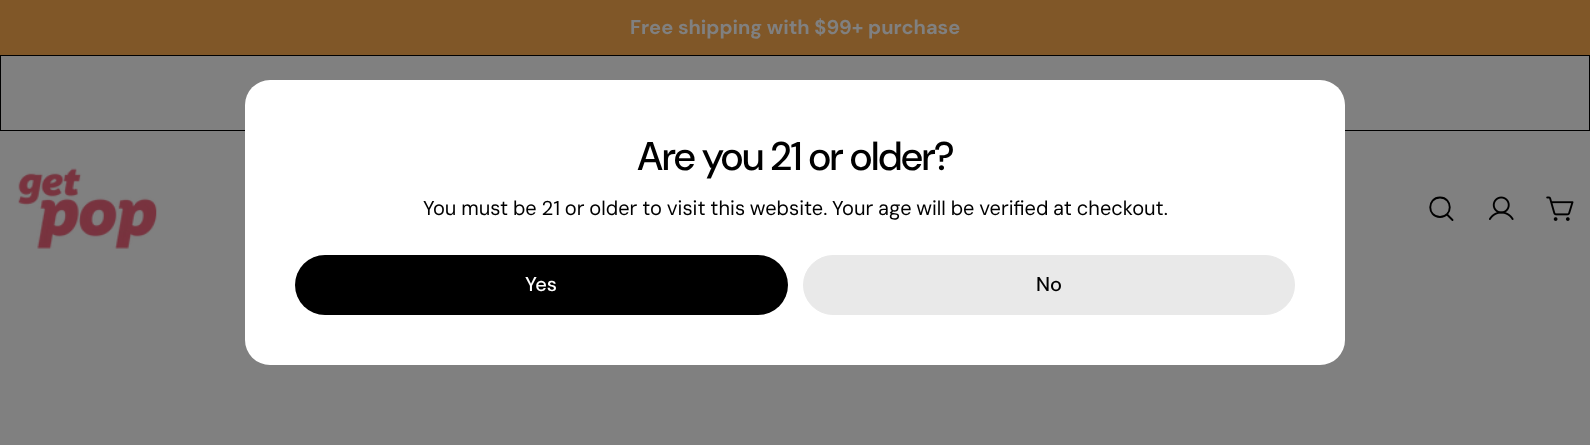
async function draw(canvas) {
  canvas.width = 1590;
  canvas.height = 445;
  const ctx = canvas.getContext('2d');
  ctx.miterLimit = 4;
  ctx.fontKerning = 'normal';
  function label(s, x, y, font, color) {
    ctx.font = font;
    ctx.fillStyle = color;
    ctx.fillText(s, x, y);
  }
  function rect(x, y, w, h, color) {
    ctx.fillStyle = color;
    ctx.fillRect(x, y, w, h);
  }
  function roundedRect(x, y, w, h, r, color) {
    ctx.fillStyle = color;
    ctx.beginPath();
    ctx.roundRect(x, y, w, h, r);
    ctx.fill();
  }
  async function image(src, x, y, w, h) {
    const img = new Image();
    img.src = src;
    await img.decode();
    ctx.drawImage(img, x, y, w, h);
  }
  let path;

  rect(0, 0, 1590, 445, '#808080');
  rect(0, 0, 1590, 55, '#805728');
  label('Free shipping with $99+ purchase', 630, 34, 'bold 20px DM Sans', '#808080');
  ctx.strokeStyle = '#000';
  ctx.strokeRect(0.5, 55.5, 1589, 75);
  await image('assets/img1.png', 18, 168, 139, 81);
  path = new Path2D('M1440 217C1453 217 1453 197.5 1440 197.5C1427 197.5 1427 217 1440 217ZM1447 214.5L1452.5 220');
  ctx.lineWidth = 1.9;
  ctx.lineCap = 'round';
  ctx.lineJoin = 'round';
  ctx.stroke(path);
  await image('assets/img2.png', 1489, 196, 25, 24);
  await image('assets/img3.png', 1546, 196, 28, 25);
  roundedRect(245, 80, 1100, 285, 25, '#fff');
  ctx.letterSpacing = '-1.6px';
  label('Are you 21 or older?', 637, 170, '500 40px DM Sans', '#000');
  ctx.letterSpacing = '0px';
  ctx.wordSpacing = '-0.6px';
  label('You must be 21 or older to visit this website. Your age will be verified at checkout.', 423, 215, '20px DM Sans', '#000');
  roundedRect(295, 255, 493, 60, 30, '#000');
  ctx.wordSpacing = '0px';
  label('Yes', 525, 291, '500 20px "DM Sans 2"', '#fff');
  ctx.fillStyle = '#e9e9e9';
  ctx.beginPath();
  ctx.roundRect(803.5, 255.5, 491, 59, 29.5);
  ctx.fill();
  ctx.strokeStyle = '#e9e9e9';
  ctx.lineWidth = 1;
  ctx.lineJoin = 'miter';
  ctx.stroke();
  label('No', 1036, 291, '500 20px "DM Sans 2"', '#000');
}

draw(document.querySelector('canvas'));
